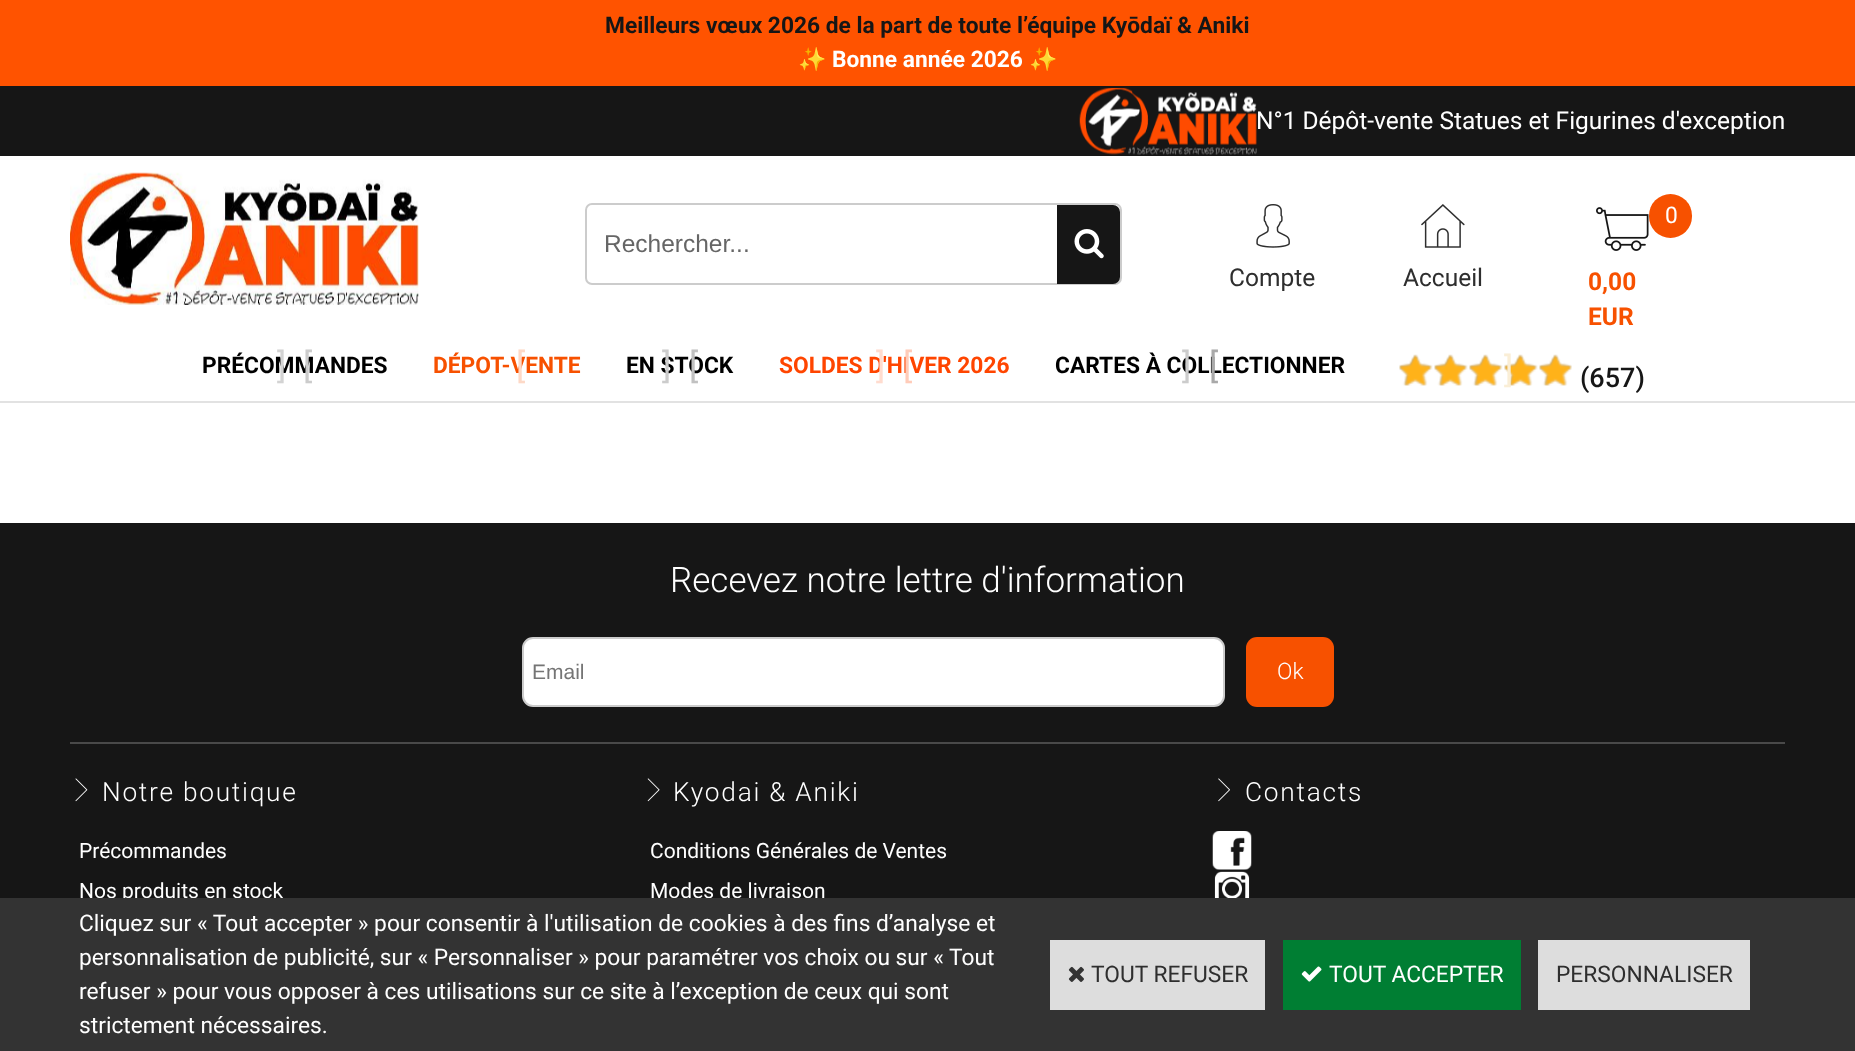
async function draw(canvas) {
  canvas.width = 1855;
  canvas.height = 1051;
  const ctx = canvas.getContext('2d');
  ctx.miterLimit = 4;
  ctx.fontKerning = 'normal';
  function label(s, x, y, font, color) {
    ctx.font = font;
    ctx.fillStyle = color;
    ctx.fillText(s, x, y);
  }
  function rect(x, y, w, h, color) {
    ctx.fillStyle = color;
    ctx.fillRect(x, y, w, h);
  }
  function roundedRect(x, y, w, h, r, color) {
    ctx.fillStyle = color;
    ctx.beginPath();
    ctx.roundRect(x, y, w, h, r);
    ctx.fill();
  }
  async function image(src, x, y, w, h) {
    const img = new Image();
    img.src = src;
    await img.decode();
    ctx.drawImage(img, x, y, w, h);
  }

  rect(0, 0, 1855, 1051, '#fff');
  rect(0, 0, 1855, 86, '#ff5300');
  label('Meilleurs vœux 2026 de la part de toute l’équipe Kyōdaï & Aniki', 605, 33, 'bold 22.75px Roboto', '#161616');
  label('✨', 798, 67, '22.75px Noto Color Emoji', '#fff');
  label('Bonne année 2026', 832, 67, 'bold 22.75px Roboto', '#fff');
  label('✨', 1029, 67, '22.75px Noto Color Emoji', '#fff');
  rect(0, 86, 1855, 70, '#161616');
  rect(0, 401, 1855, 2, '#e2e2e2');
  await image('assets/img1.png', 1079, 88, 178, 67);
  label('N°1 Dépôt-vente Statues et Figurines d\'exception', 1256, 129, '24.5px Roboto', '#fff');
  await image('assets/img2.png', 70, 172, 349, 133);
  ctx.beginPath();
  ctx.roundRect(586, 204, 535, 80, 6);
  ctx.strokeStyle = '#ccc';
  ctx.lineWidth = 2;
  ctx.stroke();
  label('Rechercher...', 604, 252, '24.5px Liberation Sans', '#666');
  ctx.fillStyle = '#161616';
  ctx.beginPath();
  ctx.roundRect(1057, 205, 63, 79, [0, 7, 7, 0]);
  ctx.fill();
  await image('assets/img3.png', 1074, 229, 30, 30);
  await image('assets/img4.png', 1256, 204, 34, 44);
  label('Compte', 1229, 286, '24.5px Roboto', '#2e2e2e');
  await image('assets/img5.png', 1421, 204, 44, 44);
  label('Accueil', 1403, 286, '24.5px Roboto', '#2e2e2e');
  await image('assets/img6.png', 1596, 207, 53, 44);
  roundedRect(1649, 194, 43, 44, 21.5, '#f75100');
  label('0', 1665, 223, '22.75px Roboto', '#fff');
  label('0,00', 1588, 290, 'bold 24.5px Roboto', '#f75100');
  label('EUR', 1588, 325, 'bold 24.5px Roboto', '#f75100');
  label('PRÉCOMMANDES', 202, 373, 'bold 22.75px Roboto', '#000');
  label(']', 277, 378, '35px Roboto', '#d3d3d3');
  label('[', 303, 378, '35px Roboto', '#ccc');
  label('DÉPOT-VENTE', 433, 373, 'bold 22.75px Roboto', '#f75100');
  label('[', 516, 378, '35px Roboto', '#fdd9c7');
  label('EN STOCK', 626, 373, 'bold 22.75px Roboto', '#000');
  label(']', 662, 378, '35px Roboto', '#ccc');
  label('[', 689, 378, '35px Roboto', '#c1c1c1');
  label('SOLDES D\'HIVER 2026', 779, 373, 'bold 22.75px Roboto', '#ff4500');
  label(']', 876, 378, '35px Roboto', '#ffdccf');
  label('[', 903, 378, '35px Roboto', '#ffccb9');
  label('CARTES À COLLECTIONNER', 1055, 373, 'bold 22.75px Roboto', '#000');
  label(']', 1182, 378, '35px Roboto', '#ccc');
  label('[', 1209, 378, '35px Roboto', '#a9a9a9');
  await image('assets/img7.png', 1399, 354, 173, 32);
  await image('assets/img8.png', 1399, 354, 173, 32);
  label(']', 1504, 382, '35px Roboto', '#faeed6');
  label('(657)', 1580, 387, '500 27px Roboto', '#161616');
  rect(0, 523, 1855, 375, '#161616');
  rect(70, 742, 1715, 2, '#494949');
  label('Recevez notre lettre d\'information', 670, 592, '300 35px Roboto', '#fff');
  ctx.beginPath();
  ctx.roundRect(523, 638, 701, 68, 10);
  ctx.fill();
  ctx.stroke();
  label('Email', 532, 679, '21px Liberation Sans', '#757575');
  roundedRect(1246, 637, 88, 70, 11, '#f75100');
  label('Ok', 1277, 679, '300 22.75px Roboto', '#fff');
  await image('assets/img9.png', 75, 778, 13, 24);
  ctx.letterSpacing = '1.75px';
  label('Notre boutique', 102, 801, '300 26.25px Roboto', '#fff');
  ctx.letterSpacing = '0px';
  label('Précommandes', 79, 858, '21px Roboto', '#fff');
  label('Nos produits en stock', 79, 898, '21px Roboto', '#fff');
  await image('assets/img10.png', 647, 778, 13, 24);
  ctx.letterSpacing = '1.75px';
  label('Kyodai & Aniki', 673, 801, '300 26.25px Roboto', '#fff');
  ctx.letterSpacing = '0px';
  label('Conditions Générales de Ventes', 650, 858, '21px Roboto', '#fff');
  label('Modes de livraison', 650, 898, '21px Roboto', '#fff');
  await image('assets/img11.png', 1218, 778, 12, 24);
  ctx.letterSpacing = '1.75px';
  label('Contacts', 1245, 801, '300 26.25px Roboto', '#fff');
  await image('assets/img12.png', 1212, 831, 40, 39);
  await image('assets/img13.png', 1214, 871, 36, 27);
  rect(0, 898, 1855, 153, '#333');
  ctx.letterSpacing = '0px';
  label('Cliquez sur « Tout accepter » pour consentir à l\'utilisation de cookies à des fins d’analyse et', 79, 931, '22.75px Roboto', '#fff');
  label('personnalisation de publicité, sur « Personnaliser » pour paramétrer vos choix ou sur « Tout', 79, 965, '22.75px Roboto', '#fff');
  label('refuser » pour vous opposer à ces utilisations sur ce site à l’exception de ceux qui sont', 79, 999, '22.75px Roboto', '#fff');
  label('strictement nécessaires.', 79, 1033, '22.75px Roboto', '#fff');
  rect(1050, 940, 215, 70, '#ddd');
  await image('assets/img14.png', 1068, 966, 16, 16);
  label('TOUT REFUSER', 1091, 982, '22.75px Roboto', '#2e2e2e');
  rect(1283, 940, 238, 70, '#007e33');
  await image('assets/img15.png', 1301, 966, 21, 16);
  label('TOUT ACCEPTER', 1329, 982, '22.75px Roboto', '#fff');
  rect(1538, 940, 212, 70, '#ddd');
  label('PERSONNALISER', 1556, 982, '22.75px Roboto', '#2e2e2e');
}

draw(document.querySelector('canvas'));
